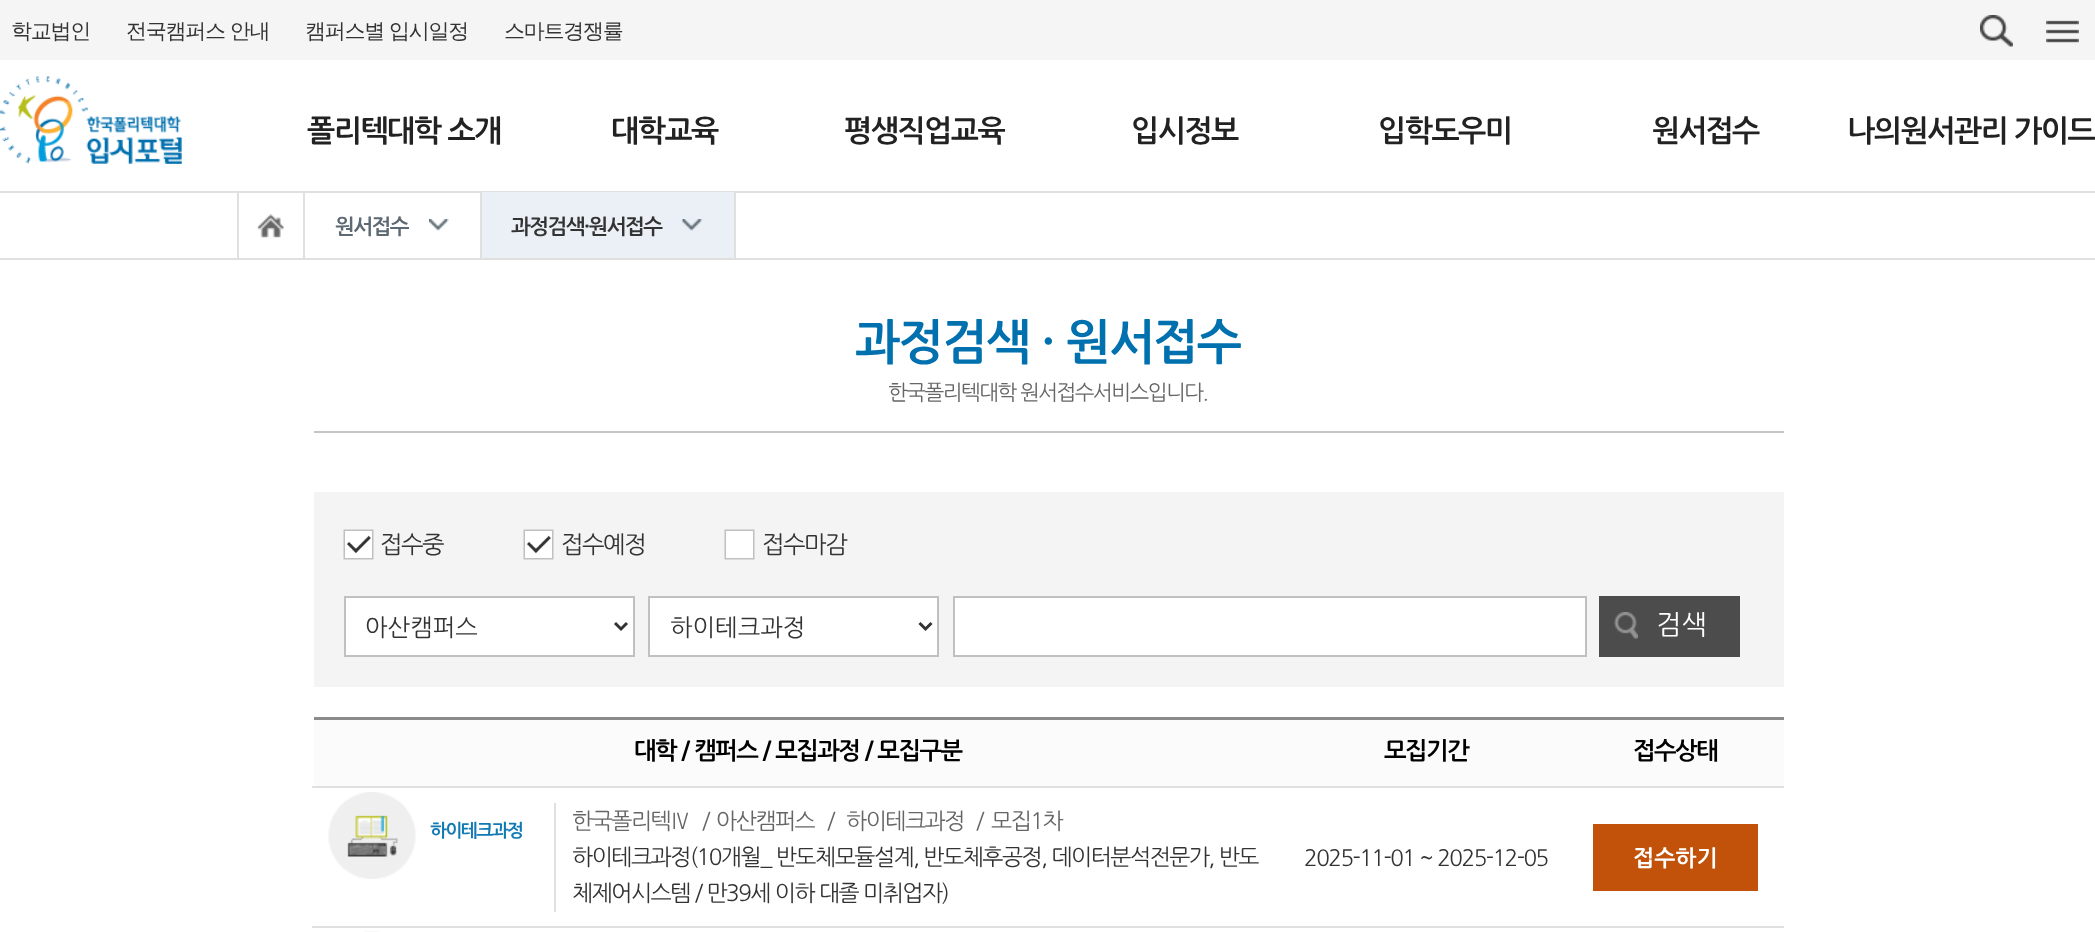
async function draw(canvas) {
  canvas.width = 2095;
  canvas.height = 932;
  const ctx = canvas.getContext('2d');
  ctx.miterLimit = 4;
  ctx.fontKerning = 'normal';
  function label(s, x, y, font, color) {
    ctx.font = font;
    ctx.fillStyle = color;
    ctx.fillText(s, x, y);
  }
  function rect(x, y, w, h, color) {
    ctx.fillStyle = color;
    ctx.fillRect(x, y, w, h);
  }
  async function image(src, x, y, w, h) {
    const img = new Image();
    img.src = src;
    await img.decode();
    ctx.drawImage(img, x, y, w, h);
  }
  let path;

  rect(0, 0, 2095, 932, '#fff');
  rect(0, 0, 2095, 60, '#f5f5f5');
  ctx.letterSpacing = '-1.25px';
  label('학교법인', 11, 38, '500 21px WenQuanYi Zen Hei', '#333');
  label('전국캠퍼스 안내', 126, 38, '500 21px WenQuanYi Zen Hei', '#333');
  label('캠퍼스별 입시일정', 305, 38, '500 21px WenQuanYi Zen Hei', '#333');
  label('스마트경쟁률', 504, 38, '500 21px WenQuanYi Zen Hei', '#333');
  await image('assets/img1.png', 1980, 15, 33, 32);
  await image('assets/img2.png', 2046, 20, 33, 23);
  await image('assets/img3.png', 0, 76, 182, 88);
  ctx.letterSpacing = '-1.5px';
  label('폴리텍대학 소개', 307, 140, 'bold 30px NanumGothic', '#222');
  label('대학교육', 611, 140, 'bold 30px NanumGothic', '#222');
  label('평생직업교육', 844, 140, 'bold 30px NanumGothic', '#222');
  label('입시정보', 1131, 140, 'bold 30px NanumGothic', '#222');
  label('입학도우미', 1378, 140, 'bold 30px NanumGothic', '#222');
  label('원서접수', 1652, 140, 'bold 30px NanumGothic', '#222');
  label('나의원서관리 가이드', 1847, 140, 'bold 30px NanumGothic', '#222');
  rect(0, 191, 2095, 2, '#e0e0e0');
  rect(0, 258, 2095, 2, '#e0e0e0');
  rect(237, 192, 2, 66, '#e0e0e0');
  rect(303, 192, 2, 66, '#e0e0e0');
  await image('assets/img4.png', 257, 214, 27, 24);
  rect(480, 192, 2, 66, '#e0e0e0');
  label('원서접수', 335, 233, 'bold 21px NanumGothic', '#5d6a73');
  await image('assets/img5.png', 429, 219, 20, 12);
  rect(734, 192, 2, 66, '#e0e0e0');
  rect(482, 192, 252, 66, '#eaf0f5');
  label('과정검색·원서접수', 511, 233, 'bold 21px NanumGothic', '#333');
  await image('assets/img6.png', 682, 219, 21, 12);
  rect(314, 431, 1470, 2, '#c3c4c6');
  label('과정검색 · 원서접수', 855, 357, 'bold 48px NanumGothic', '#0070af');
  label('한국폴리텍대학 원서접수서비스입니다.', 888, 399, '21px NanumGothic', '#666');
  rect(314, 492, 1470, 195, '#f4f4f4');
  await image('assets/img7.png', 343, 529, 31, 31);
  label('접수중', 380, 552, '24px NanumGothic', '#333');
  await image('assets/img8.png', 523, 529, 31, 31);
  label('접수예정', 561, 552, '24px NanumGothic', '#333');
  await image('assets/img9.png', 724, 529, 31, 31);
  label('접수마감', 762, 552, '24px NanumGothic', '#333');
  ctx.fillStyle = '#fff';
  ctx.beginPath();
  ctx.rect(345, 597, 289, 59);
  ctx.fill();
  ctx.strokeStyle = '#c0c0c0';
  ctx.lineWidth = 2;
  ctx.stroke();
  path = new Path2D('M615 623L621 629L627 623');
  ctx.strokeStyle = '#333';
  ctx.lineWidth = 3;
  ctx.stroke(path);
  ctx.letterSpacing = '0px';
  label('아산캠퍼스', 365, 635, '24px NanumGothic', '#333');
  ctx.fillStyle = '#fff';
  ctx.beginPath();
  ctx.rect(649, 597, 289, 59);
  ctx.fill();
  ctx.strokeStyle = '#c0c0c0';
  ctx.lineWidth = 2;
  ctx.stroke();
  path = new Path2D('M919.5 623L925.5 629L931.5 623');
  ctx.strokeStyle = '#333';
  ctx.lineWidth = 3;
  ctx.stroke(path);
  label('하이테크과정', 670, 635, '24px NanumGothic', '#333');
  ctx.fillStyle = '#fff';
  ctx.beginPath();
  ctx.rect(954, 597, 632, 59);
  ctx.fill();
  ctx.strokeStyle = '#c0c0c0';
  ctx.lineWidth = 2;
  ctx.stroke();
  rect(1599, 596, 141, 61, '#4c4c4d');
  await image('assets/img10.png', 1614, 612, 24, 27);
  label('검색', 1656, 633, '27px NanumGothic', '#fff');
  rect(314, 717, 1470, 3, '#8b8b8b');
  rect(314, 720, 1470, 66, '#fbfbfb');
  ctx.letterSpacing = '-1.5px';
  label('대학 / 캠퍼스 / 모집과정 / 모집구분', 634, 758, 'bold 24px NanumGothic', '#000');
  label('모집기간', 1384, 758, 'bold 24px NanumGothic', '#000');
  rect(312, 786, 1472, 2, '#e0e0e0');
  label('접수상태', 1633, 758, 'bold 24px NanumGothic', '#000');
  rect(554, 803, 2, 109, '#e0e0e0');
  await image('assets/img11.png', 328, 792, 88, 87);
  label('하이테크과정', 430, 836, 'bold 18px NanumGothic', '#117ab4');
  label('한국폴리텍Ⅳ', 572, 828, '22.5px NanumGothic', '#666');
  label('/', 702, 828, '22.5px NanumGothic', '#666');
  label('아산캠퍼스', 716, 828, '22.5px NanumGothic', '#666');
  label('/', 827, 828, '22.5px NanumGothic', '#666');
  label('하이테크과정', 846, 828, '22.5px NanumGothic', '#666');
  label('/', 976, 828, '22.5px NanumGothic', '#666');
  label('모집1차', 991, 828, '22.5px NanumGothic', '#666');
  label('하이테크과정(10개월_ 반도체모듈설계, 반도체후공정, 데이터분석전문가, 반도', 572, 864, '22.5px NanumGothic', '#333');
  label('체제어시스템 / 만39세 이하 대졸 미취업자)', 572, 900, '22.5px NanumGothic', '#333');
  label('2025-11-01 ~ 2025-12-05', 1304, 865, '22.5px NanumGothic', '#333');
  rect(312, 926, 1472, 2, '#e0e0e0');
  rect(1593, 824, 165, 67, '#c2510a');
  ctx.letterSpacing = '0px';
  label('접수하기', 1633, 865, 'bold 22.5px NanumGothic', '#fff');
  await image('assets/img12.png', 364, 931, 15, 1);
}

draw(document.querySelector('canvas'));
